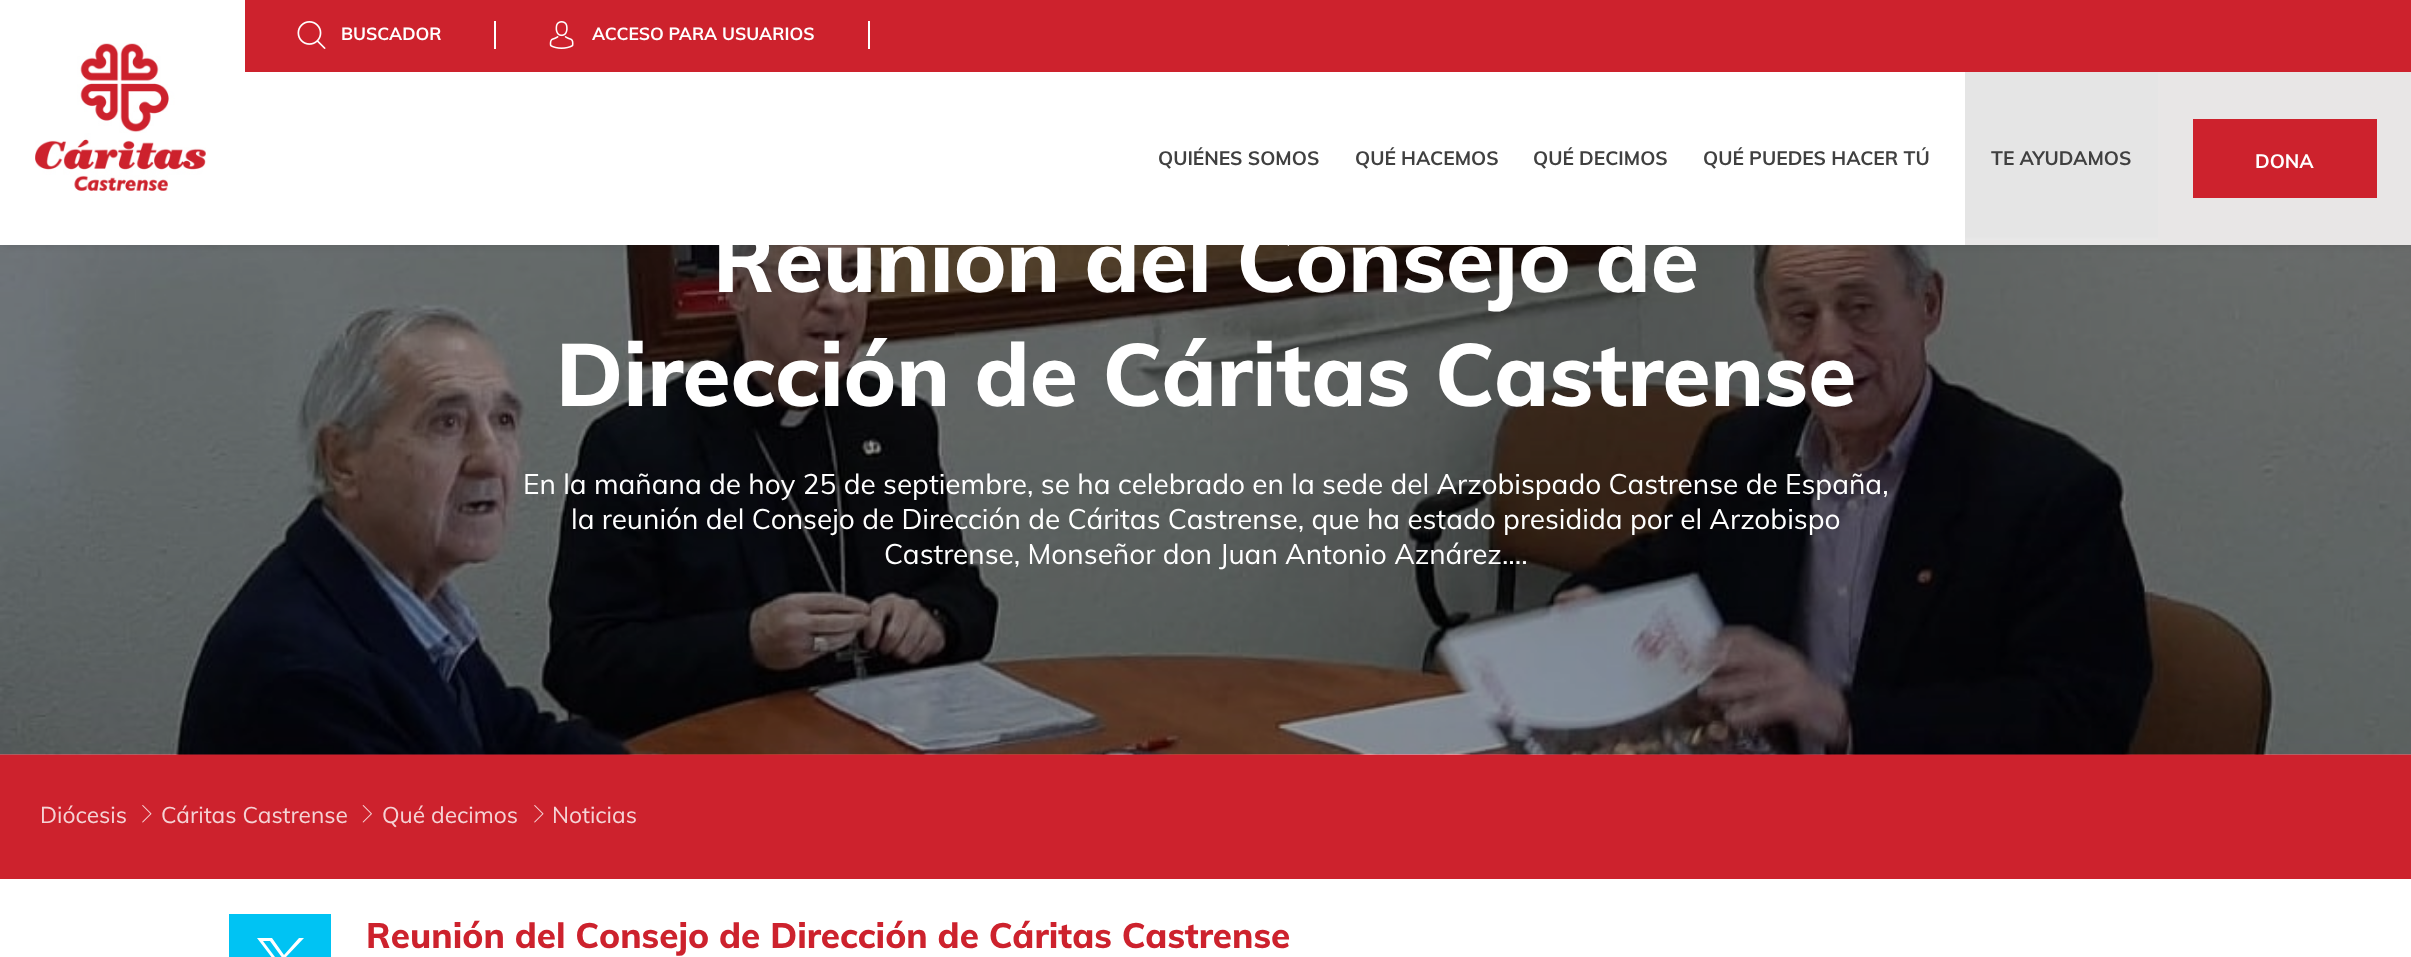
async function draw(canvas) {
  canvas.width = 2411;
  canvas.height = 957;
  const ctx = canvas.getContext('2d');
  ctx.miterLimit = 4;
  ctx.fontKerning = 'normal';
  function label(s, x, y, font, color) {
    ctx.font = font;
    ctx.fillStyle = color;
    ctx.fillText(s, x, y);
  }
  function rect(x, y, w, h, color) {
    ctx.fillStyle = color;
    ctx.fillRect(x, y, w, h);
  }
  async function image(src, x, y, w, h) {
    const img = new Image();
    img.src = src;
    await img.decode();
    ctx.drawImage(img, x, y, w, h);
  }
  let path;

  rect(0, 0, 2411, 957, '#fff');
  rect(0, 754, 2411, 125, '#cd222d');
  await image('assets/img4.png', 0, 245, 2411, 510);
  ctx.fillStyle = '#0000001a';
  ctx.filter = 'blur(4.5px)';
  ctx.beginPath();
  ctx.rect(2, 0, 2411, 245);
  ctx.fill();
  ctx.filter = 'none';
  rect(0, 0, 1965, 245, '#fff');
  await image('assets/img1.png', 35, 43, 171, 148);
  rect(245, 0, 2166, 72, '#cd222d');
  rect(494, 21, 2, 28, '#fff');
  await image('assets/img2.png', 297, 21, 29, 28);
  label('BUSCADOR', 341, 40, 'bold 17.5px Muli', '#fff');
  rect(868, 21, 2, 28, '#fff');
  await image('assets/img3.png', 549, 21, 25, 28);
  label('ACCESO PARA USUARIOS', 592, 40, 'bold 17.5px Muli', '#fff');
  label('QUIÉNES SOMOS', 1158, 165, 'bold 19.25px Muli', '#404040');
  label('QUÉ HACEMOS', 1355, 165, 'bold 19.25px Muli', '#404040');
  label('QUÉ DECIMOS', 1533, 165, 'bold 19.25px Muli', '#404040');
  label('QUÉ PUEDES HACER TÚ', 1703, 165, 'bold 19.25px Muli', '#404040');
  rect(1965, 240, 193, 5, '#e8e6e6');
  label('TE AYUDAMOS', 1991, 165, 'bold 19.25px Muli', '#404040');
  rect(2158, 72, 253, 173, '#e8e6e6');
  rect(2193, 119, 184, 79, '#cd222d');
  label('DONA', 2255, 168, 'bold 19.25px Muli', '#fff');
  label('Reunión del Consejo de', 713, 292, '800 87.5px Muli', '#fff');
  label('Dirección de Cáritas Castrense', 556, 406, '800 87.5px Muli', '#fff');
  label('En la mañana de hoy 25 de septiembre, se ha celebrado en la sede del Arzobispado Castrense de España,', 523, 494, '28px Muli', '#fff');
  label('la reunión del Consejo de Dirección de Cáritas Castrense, que ha estado presidida por el Arzobispo', 571, 529, '28px Muli', '#fff');
  label('Castrense, Monseñor don Juan Antonio Aznárez....', 884, 564, '28px Muli', '#fff');
  label('Diócesis', 40, 823, '22.75px Muli', '#f5d3d5');
  await image('assets/img5.png', 142, 805, 10, 18);
  label('Cáritas Castrense', 161, 823, '22.75px Muli', '#f5d3d5');
  await image('assets/img6.png', 362, 805, 10, 18);
  label('Qué decimos', 382, 823, '22.75px Muli', '#f5d3d5');
  await image('assets/img5.png', 534, 805, 10, 18);
  label('Noticias', 552, 823, '22.75px Muli', '#f5d3d5');
  rect(229, 914, 102, 43, '#00c3f3');
  ctx.fillStyle = '#fff';
  path = new Path2D('M257 938H272L284 955L299 938H304L286 957L306 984H291L278 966L261 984H257L276 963ZM263 941L293 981H299L270 941Z');
  ctx.fill(path);
  label('Reunión del Consejo de Dirección de Cáritas Castrense', 366, 948, '800 35px Muli', '#cd222d');
}

draw(document.querySelector('canvas'));
